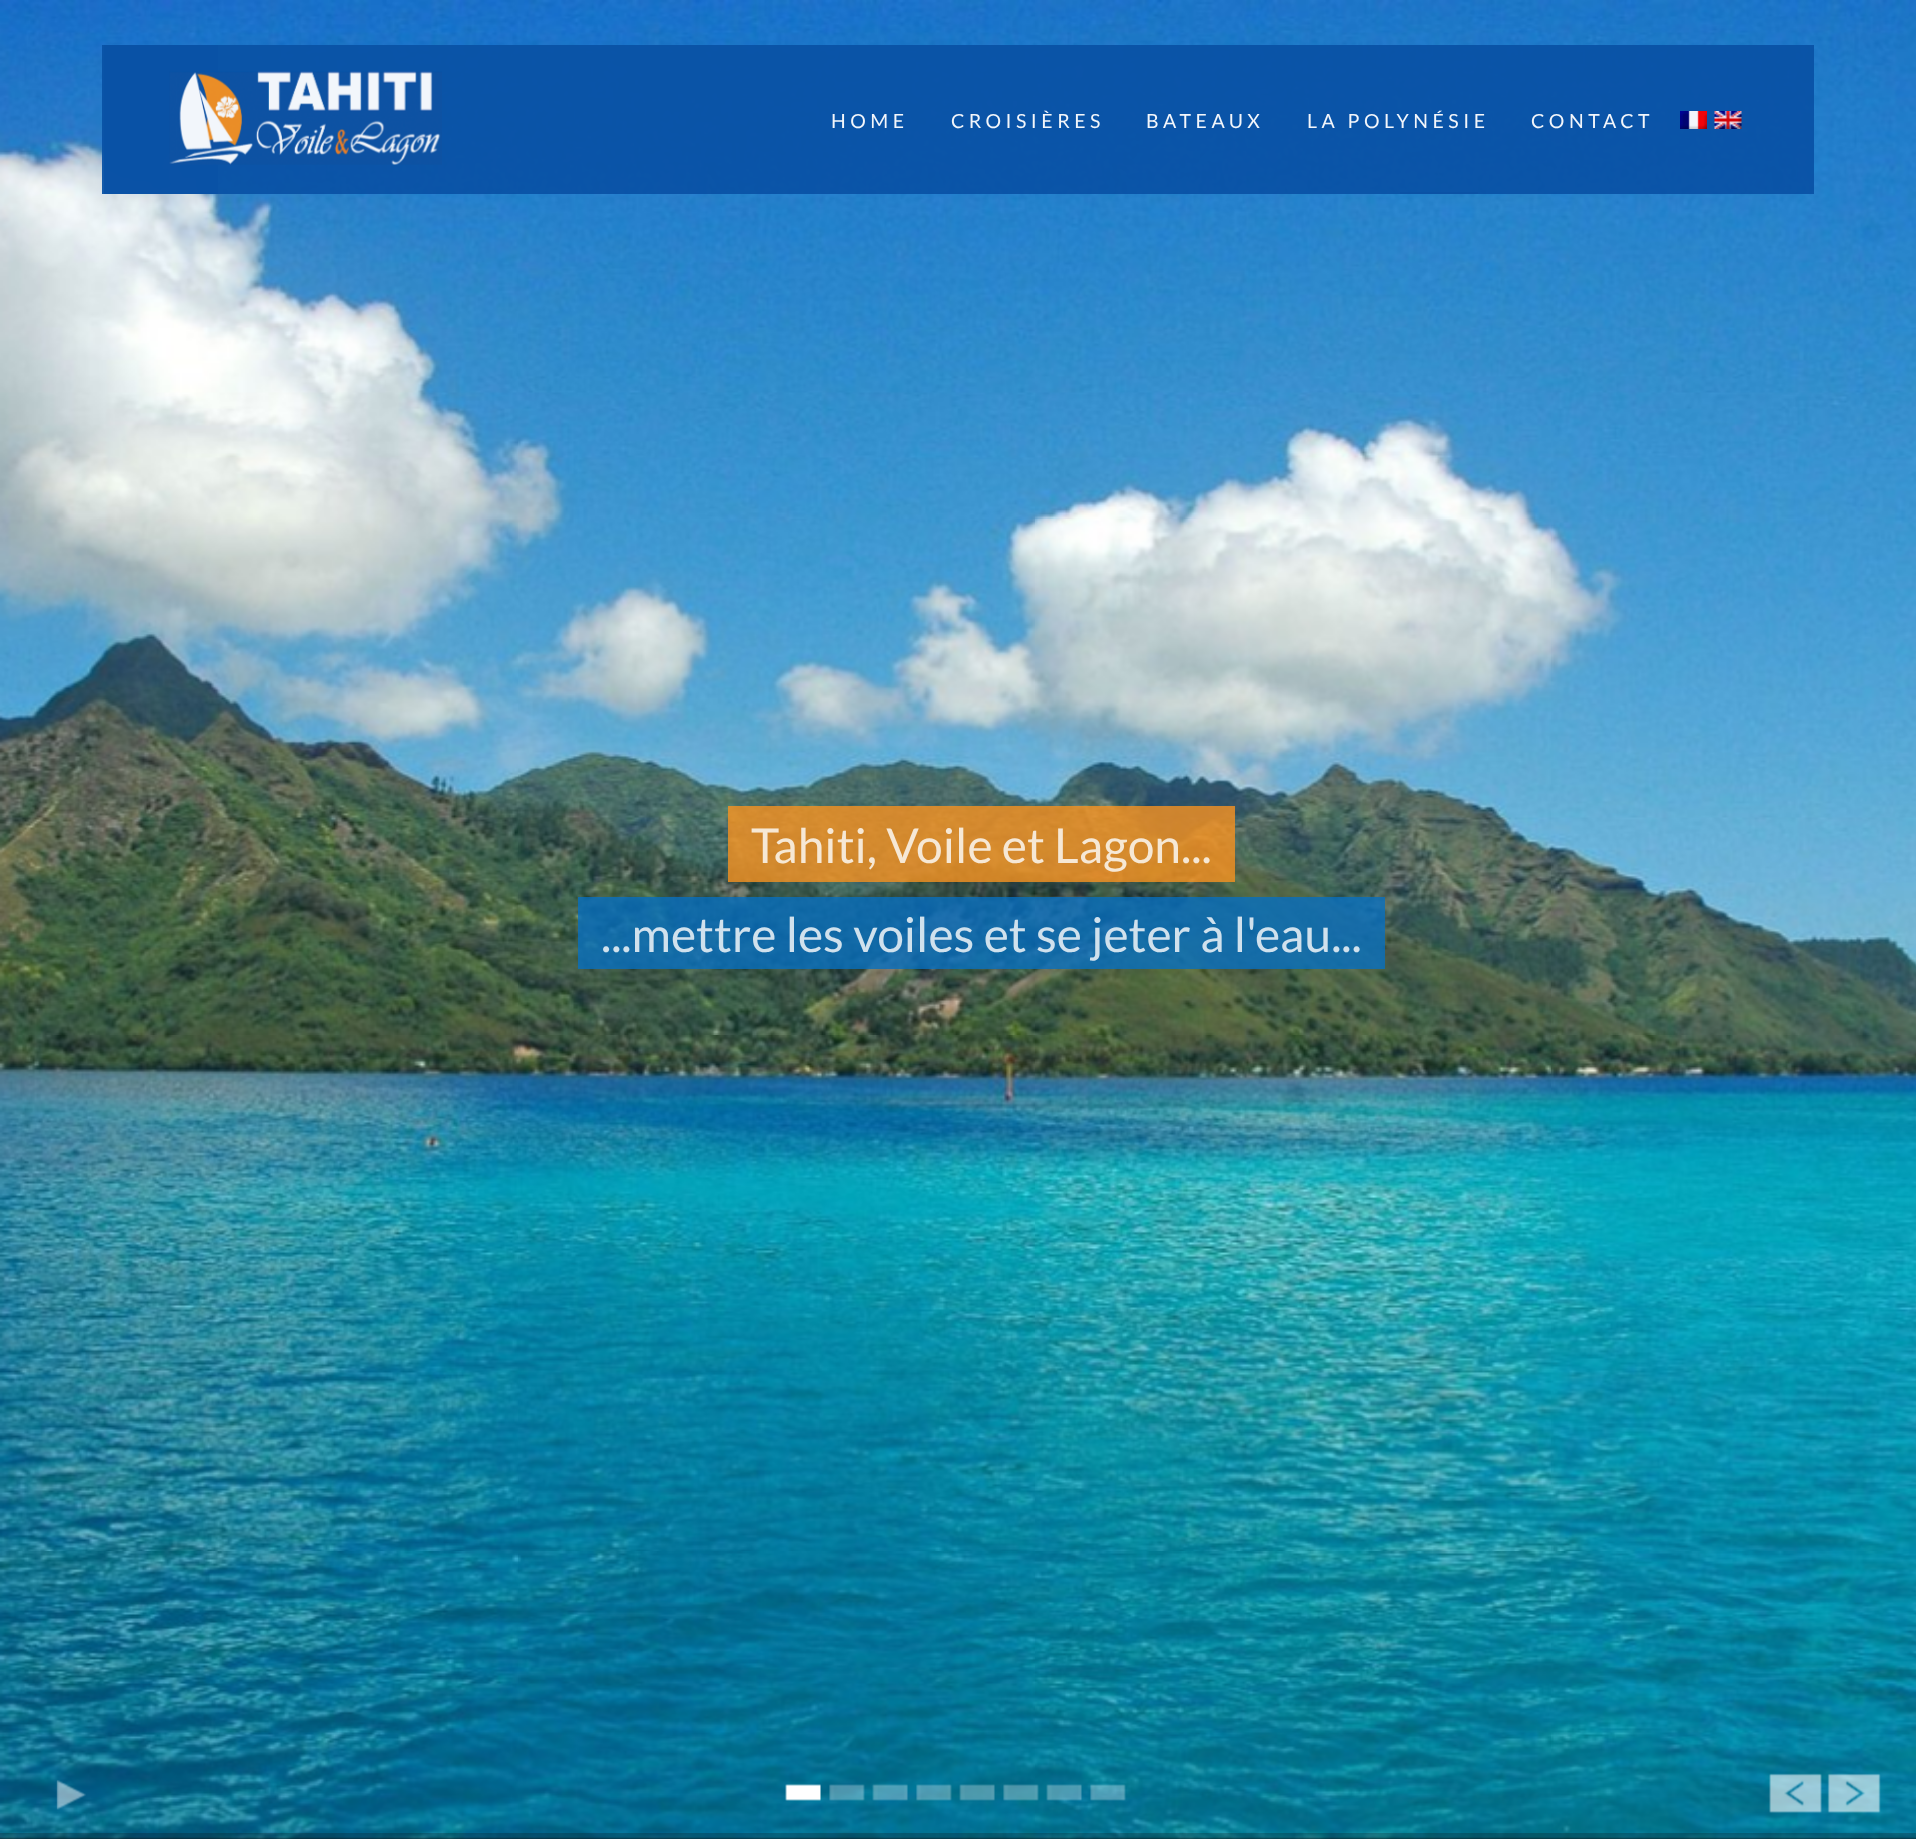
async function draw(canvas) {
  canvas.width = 1916;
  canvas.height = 1839;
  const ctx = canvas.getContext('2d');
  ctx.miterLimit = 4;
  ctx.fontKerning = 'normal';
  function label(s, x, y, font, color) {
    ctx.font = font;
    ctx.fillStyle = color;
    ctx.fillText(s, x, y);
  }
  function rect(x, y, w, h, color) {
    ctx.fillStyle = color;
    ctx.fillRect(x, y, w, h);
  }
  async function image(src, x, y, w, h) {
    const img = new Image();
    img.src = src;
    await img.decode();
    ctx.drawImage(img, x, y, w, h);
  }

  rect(0, 0, 1916, 1839, '#111');
  await image('assets/img1.png', 0, 0, 1916, 1839);
  rect(104, 45, 1710, 149, '#0a52a5f2');
  rect(102, 45, 116, 149, '#0a52a5f2');
  await image('assets/img2.png', 169, 71, 273, 94);
  ctx.letterSpacing = '4.5px';
  label('HOME', 831, 128, '19.5px Lato', '#f3f6fb');
  label('CROISIÈRES', 951, 128, '19.5px Lato', '#f3f6fb');
  label('BATEAUX', 1146, 128, '19.5px Lato', '#f3f6fb');
  rect(1400, 192, 78, 2, '#0a52a5');
  label('LA POLYNÉSIE', 1307, 128, '19.5px Lato', '#f3f6fb');
  label('CONTACT', 1531, 128, '19.5px Lato', '#f3f6fb');
  await image('assets/img3.png', 1680, 111, 27, 18);
  await image('assets/img4.png', 1714, 111, 28, 18);
  rect(728, 806, 507, 76, '#f79220cc');
  ctx.letterSpacing = '0px';
  label('Tahiti, Voile et Lagon...', 751, 863, '48px Lato', '#f6e8d5');
  rect(578, 897, 807, 72, '#076fbfcc');
  label('...mettre les voiles et se jeter à l\'eau...', 601, 952, '48px Lato', '#d0e1ed');
  await image('assets/img5.png', 56, 1780, 30, 30);
  await image('assets/img6.png', 785, 1784, 36, 17);
  await image('assets/img7.png', 829, 1784, 36, 17);
  await image('assets/img8.png', 872, 1784, 36, 17);
  await image('assets/img9.png', 916, 1784, 36, 17);
  await image('assets/img10.png', 959, 1784, 36, 17);
  await image('assets/img11.png', 1003, 1784, 36, 17);
  await image('assets/img12.png', 1046, 1784, 36, 17);
  await image('assets/img13.png', 1090, 1784, 36, 17);
  await image('assets/img14.png', 1769, 1773, 53, 40);
  await image('assets/img15.png', 1827, 1773, 54, 40);
  rect(0, 1833, 1916, 6, '#10101040');
}

draw(document.querySelector('canvas'));
